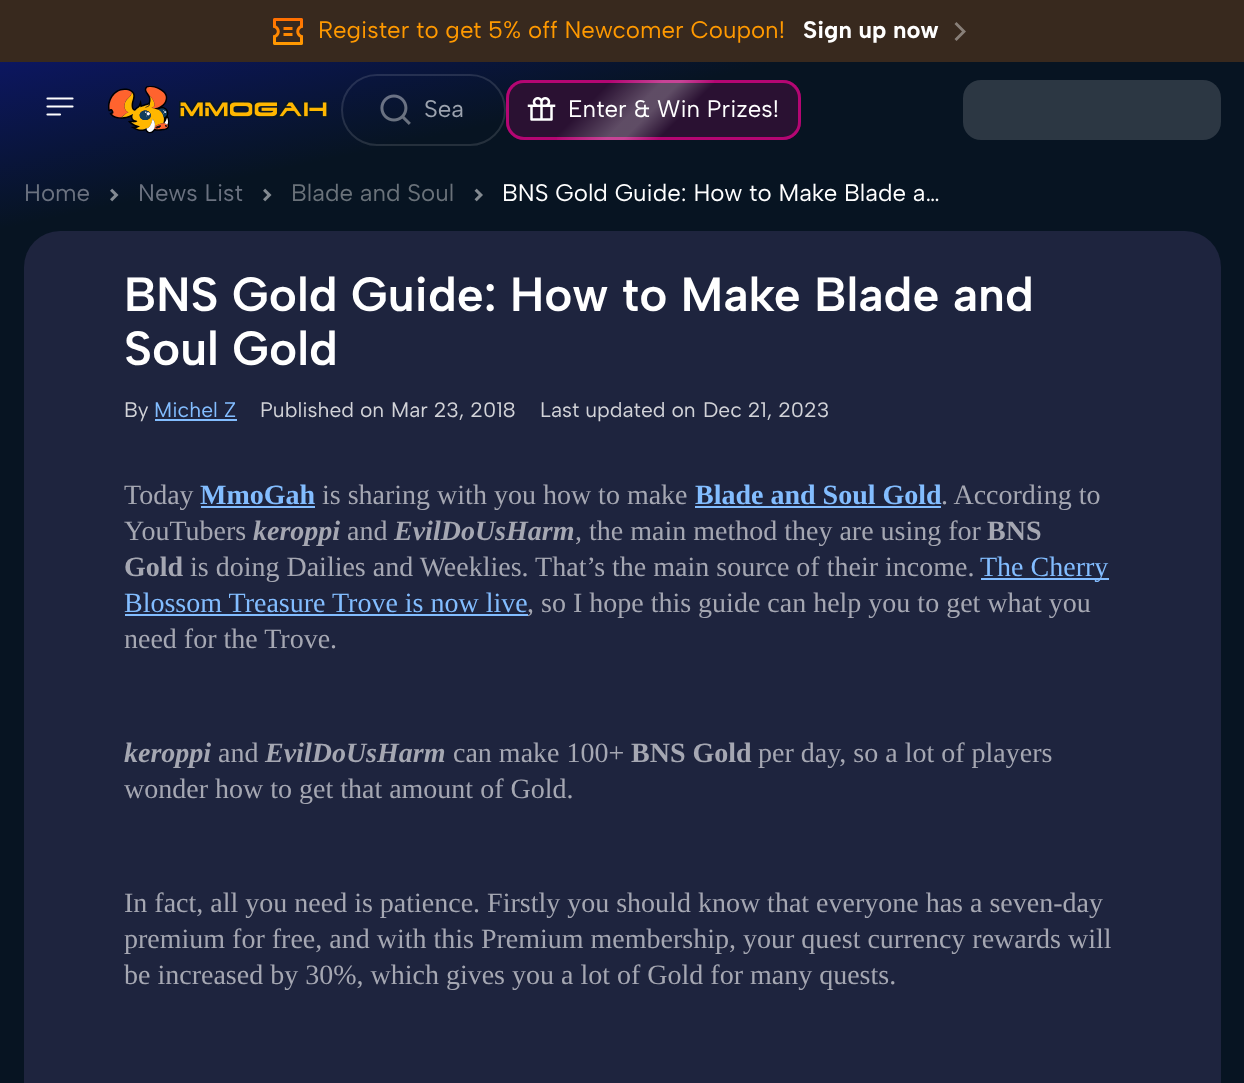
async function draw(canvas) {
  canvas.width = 1244;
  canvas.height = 1083;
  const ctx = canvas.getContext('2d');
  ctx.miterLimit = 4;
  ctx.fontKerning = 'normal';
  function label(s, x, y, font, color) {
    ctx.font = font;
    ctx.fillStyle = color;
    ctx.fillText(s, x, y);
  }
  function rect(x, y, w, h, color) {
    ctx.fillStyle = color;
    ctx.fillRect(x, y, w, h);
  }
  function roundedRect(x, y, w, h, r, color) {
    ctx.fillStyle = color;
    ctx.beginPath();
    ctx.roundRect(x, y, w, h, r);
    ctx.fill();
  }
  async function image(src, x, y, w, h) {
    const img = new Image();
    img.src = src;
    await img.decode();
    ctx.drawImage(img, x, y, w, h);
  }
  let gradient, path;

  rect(0, 0, 1244, 1083, '#fff');
  gradient = ctx.createLinearGradient(485, -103, 760, 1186);
  gradient.addColorStop(0, '#0e1777');
  gradient.addColorStop(0.17, '#071422');
  ctx.fillStyle = gradient;
  ctx.fillRect(0, 62, 1244, 1021);
  rect(0, 0, 1244, 62, '#38291e');
  await image('assets/img1.png', 273, 18, 30, 27);
  label('Register to get 5% off Newcomer Coupon!', 318, 38, '24px Albert Sans', '#f90');
  label('Sign up now', 803, 38, 'bold 24px Albert Sans', '#fff');
  ctx.fillStyle = '#887f78';
  path = new Path2D('M962 31.5L954.5 24L956.5 22L966 31.5L956.5 41L954.5 39Z');
  ctx.fill(path);
  path = new Path2D('M47.5 98.5H72.5M47.5 106.5H72.5M47.5 114.5H60');
  ctx.strokeStyle = '#fff';
  ctx.lineWidth = 2.2;
  ctx.lineCap = 'round';
  ctx.lineJoin = 'round';
  ctx.stroke(path);
  await image('assets/img2.png', 108, 86, 62, 48);
  await image('assets/img3.png', 179, 101, 149, 17);
  ctx.beginPath();
  ctx.roundRect(342, 75, 163, 70, 35);
  ctx.strokeStyle = '#ffffff1f';
  ctx.lineWidth = 2;
  ctx.lineJoin = 'miter';
  ctx.stroke();
  await image('assets/img4.png', 380, 94, 31, 31);
  label('Sea', 424, 117, '24px Albert Sans', '#9ca3af');
  roundedRect(506, 80, 295, 60, 18, '#ff0097');
  roundedRect(506, 80, 295, 60, 18, '#0714224d');
  roundedRect(509, 83, 289, 54, 15, '#2a1132');
  gradient = ctx.createLinearGradient(742, 198, 564, 21);
  gradient.addColorStop(0.2, '#00000000');
  gradient.addColorStop(0.4, '#ffffff00');
  gradient.addColorStop(0.5, '#ffffff40');
  gradient.addColorStop(0.55, '#ffffff40');
  gradient.addColorStop(0.7, '#ffffff00');
  gradient.addColorStop(1, '#00000000');
  ctx.fillStyle = gradient;
  ctx.fillRect(557, 80, 157, 60);
  await image('assets/img5.png', 527, 97, 29, 24);
  label('Enter & Win Prizes!', 568, 117, '24px Albert Sans', '#fff');
  roundedRect(963, 80, 258, 60, 18, '#1b2734');
  roundedRect(963, 80, 258, 60, 18, '#ffffff14');
  label('Home', 24, 201, '24px Albert Sans', '#6b7280');
  await image('assets/img6.png', 110, 188, 9, 14);
  label('News List', 138, 201, '24px Albert Sans', '#6b7280');
  await image('assets/img7.png', 263, 188, 9, 14);
  label('Blade and Soul', 291, 201, '24px Albert Sans', '#6a727a');
  await image('assets/img8.png', 474, 188, 9, 14);
  label('BNS Gold Guide: How to Make Blade a…', 502, 201, '24px Albert Sans', '#fff');
  roundedRect(24, 231, 1197, 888, 36, '#1e243e');
  label('BNS Gold Guide: How to Make Blade and', 124, 311, '600 48px Albert Sans', '#fff');
  label('Soul Gold', 124, 365, '600 48px Albert Sans', '#fff');
  label('By', 124, 417, '21px Albert Sans', '#d2d3d8');
  label('Michel Z', 154, 417, '21px Albert Sans', '#83bdff');
  rect(155, 419, 82, 2, '#83bdff');
  label('Published on', 260, 417, '21px Albert Sans', '#d2d3d8');
  label('Mar 23, 2018', 391, 417, '21px Albert Sans', '#d2d3d8');
  label('Last updated on', 540, 417, '21px Albert Sans', '#d2d3d8');
  label('Dec 21, 2023', 703, 417, '21px Albert Sans', '#d2d3d8');
  label('Today', 124, 504, '28px Liberation Serif', '#a5a7b2');
  label('MmoGah', 200, 504, 'bold 28px Liberation Serif', '#83bdff');
  rect(201, 506, 114, 2, '#83bdff');
  label('is sharing with you how to make', 322, 504, '28px Liberation Serif', '#a5a7b2');
  label('Blade and Soul Gold', 695, 504, 'bold 28px Liberation Serif', '#83bdff');
  label('. According to', 941, 504, '28px Liberation Serif', '#a5a7b2');
  rect(695, 506, 246, 2, '#83bdff');
  label('YouTubers', 124, 540, '28px Liberation Serif', '#a5a7b2');
  label('keroppi', 253, 540, 'italic bold 28px Liberation Serif', '#a5a7b2');
  label('and', 347, 540, '28px Liberation Serif', '#a5a7b2');
  label('EvilDoUsHarm', 394, 540, 'italic bold 28px Liberation Serif', '#a5a7b2');
  label(', the main method they are using for', 575, 540, '28px Liberation Serif', '#a5a7b2');
  label('BNS', 987, 540, 'bold 28px Liberation Serif', '#a5a7b2');
  label('Gold', 124, 576, 'bold 28px Liberation Serif', '#a5a7b2');
  label('is doing Dailies and Weeklies. That’s the main source of their income.', 190, 576, '28px Liberation Serif', '#a5a7b2');
  rect(981, 578, 128, 2, '#83bdff');
  label('The Cherry', 980, 576, '28px Liberation Serif', '#83bdff');
  label('Blossom Treasure Trove is now live', 124, 612, '28px Liberation Serif', '#83bdff');
  label(', so I hope this guide can help you to get what you', 527, 612, '28px Liberation Serif', '#a5a7b2');
  rect(125, 614, 403, 2, '#83bdff');
  label('need for the Trove.', 124, 648, '28px Liberation Serif', '#a5a7b2');
  label('keroppi', 124, 762, 'italic bold 28px Liberation Serif', '#a5a7b2');
  label('and', 218, 762, '28px Liberation Serif', '#a5a7b2');
  label('EvilDoUsHarm', 265, 762, 'italic bold 28px Liberation Serif', '#a5a7b2');
  label('can make 100+', 453, 762, '28px Liberation Serif', '#a5a7b2');
  label('BNS Gold', 631, 762, 'bold 28px Liberation Serif', '#a5a7b2');
  label('per day, so a lot of players', 758, 762, '28px Liberation Serif', '#a5a7b2');
  label('wonder how to get that amount of Gold.', 124, 798, '28px Liberation Serif', '#a5a7b2');
  label('In fact, all you need is patience. Firstly you should know that everyone has a seven-day', 124, 912, '28px Liberation Serif', '#a5a7b2');
  label('premium for free, and with this Premium membership, your quest currency rewards will', 124, 948, '28px Liberation Serif', '#a5a7b2');
  label('be increased by 30%, which gives you a lot of Gold for many quests.', 124, 984, '28px Liberation Serif', '#a5a7b2');
}

draw(document.querySelector('canvas'));
